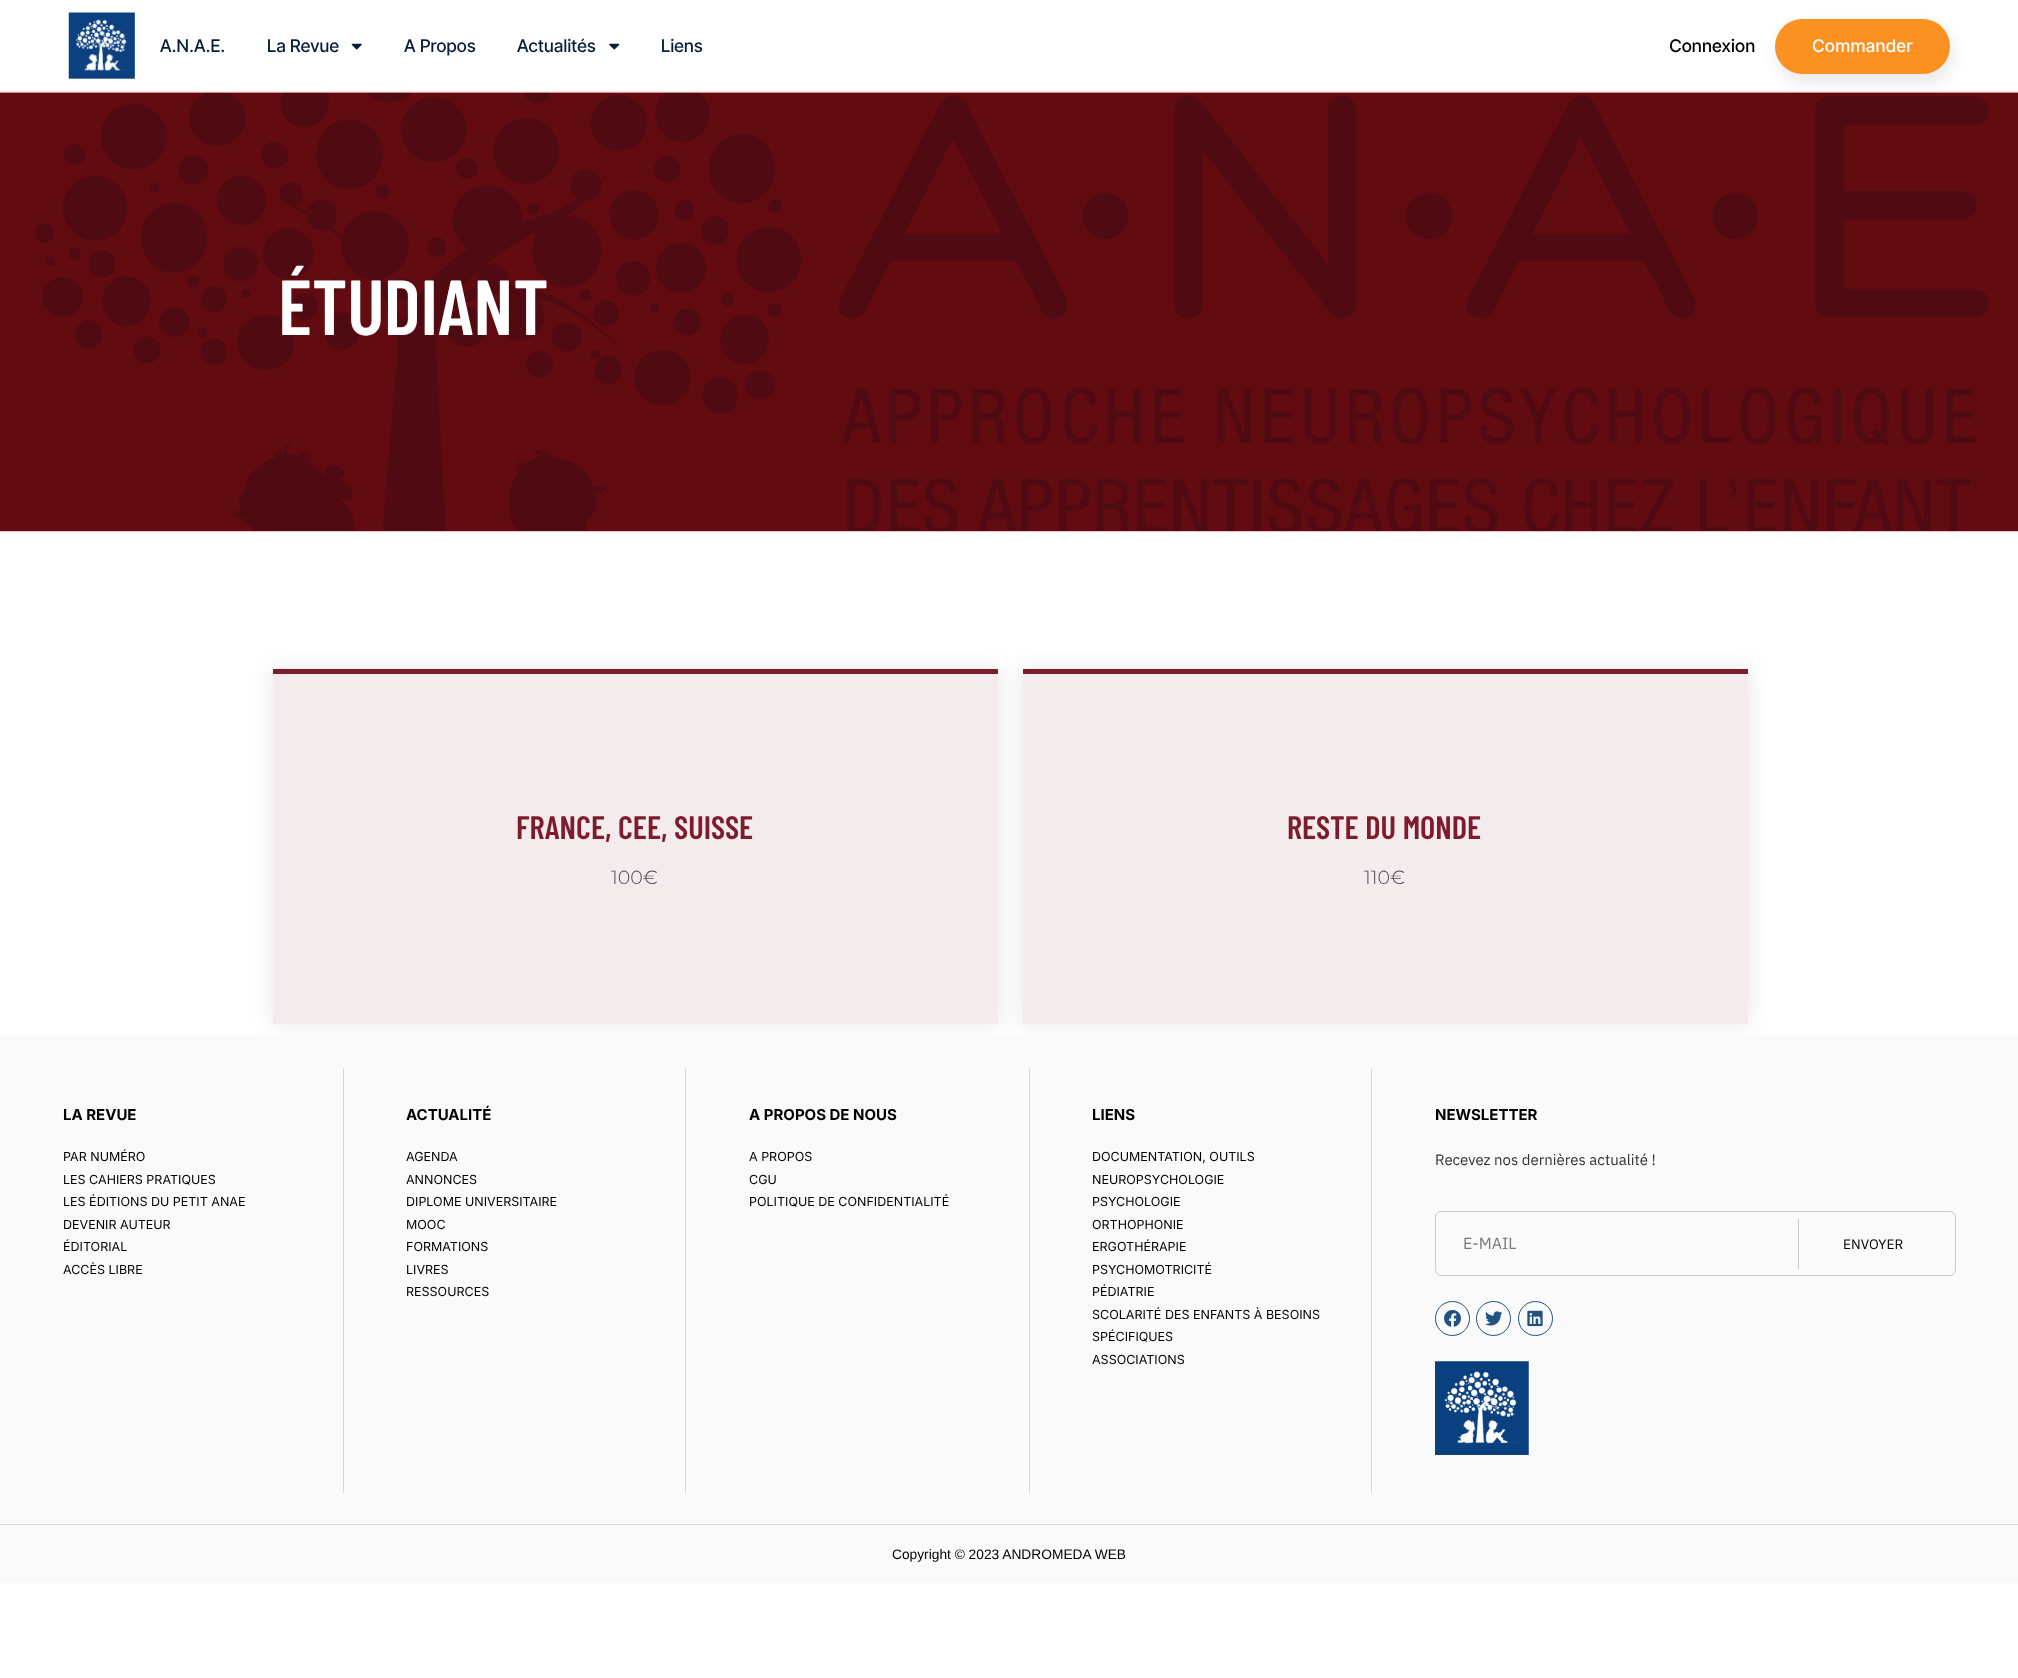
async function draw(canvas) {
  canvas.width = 2018;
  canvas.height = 1678;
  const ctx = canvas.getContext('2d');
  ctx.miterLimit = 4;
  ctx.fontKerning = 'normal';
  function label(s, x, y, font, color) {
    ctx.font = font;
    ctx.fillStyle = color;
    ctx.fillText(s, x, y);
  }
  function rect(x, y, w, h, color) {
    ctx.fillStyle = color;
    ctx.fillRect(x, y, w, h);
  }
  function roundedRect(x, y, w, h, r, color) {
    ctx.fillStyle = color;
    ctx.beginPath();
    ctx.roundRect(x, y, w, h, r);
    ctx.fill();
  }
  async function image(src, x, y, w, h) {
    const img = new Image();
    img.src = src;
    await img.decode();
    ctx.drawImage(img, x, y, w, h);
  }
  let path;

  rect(0, 0, 2018, 1678, '#fff');
  rect(0, 91, 2018, 1, '#f0f0f0');
  await image('assets/img1.png', 68, 12, 67, 67);
  ctx.letterSpacing = '0.25px';
  label('A.N.A.E.', 160, 52, '500 17.5px Inter Tight', '#061e3a');
  label('La Revue', 267, 52, '500 17.5px Inter Tight', '#061e3a');
  await image('assets/img2.png', 351, 43, 11, 7);
  label('A Propos', 404, 52, '500 17.5px Inter Tight', '#061e3a');
  label('Actualités', 517, 52, '500 17.5px Inter Tight', '#061e3a');
  await image('assets/img3.png', 609, 43, 11, 7);
  label('Liens', 661, 52, '500 17.5px Inter Tight', '#061e3a');
  ctx.letterSpacing = '-0.4px';
  label('Connexion', 1669, 52, '500 17.5px Inter', '#000');
  await image('assets/img4.png', 0, 92, 2018, 440);
  ctx.fillStyle = '#00000014';
  ctx.filter = 'blur(7.5px)';
  ctx.beginPath();
  ctx.roundRect(1776, 26, 178, 58, 29);
  ctx.fill();
  ctx.filter = 'none';
  roundedRect(1775, 19, 175, 55, 27.5, '#fa9120');
  ctx.letterSpacing = '-0.25px';
  label('Commander', 1812, 52, '500 17.5px Inter', '#fff');
  ctx.letterSpacing = '0px';
  label('ÉTUDIANT', 278, 335, '600 78px Barlow Condensed', '#fff');
  ctx.save();
  path = new Path2D('M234 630H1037V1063H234ZM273 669H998V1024H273Z');
  ctx.clip(path, 'evenodd');
  ctx.fillStyle = '#0000001a';
  ctx.filter = 'blur(12.5px)';
  ctx.beginPath();
  ctx.rect(273, 669, 725, 355);
  ctx.fill();
  ctx.filter = 'none';
  ctx.restore();
  rect(273, 674, 725, 350, '#7c1c2c17');
  rect(273, 669, 725, 5, '#7c1c2c');
  label('FRANCE, CEE, SUISSE', 516, 839, '600 32.5px Barlow Condensed', '#7c1c2c');
  label('100€', 611, 884, '300 19px Montserrat', '#4a4a4a');
  ctx.save();
  path = new Path2D('M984 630H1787V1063H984ZM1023 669H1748V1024H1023Z');
  ctx.clip(path, 'evenodd');
  ctx.fillStyle = '#0000001a';
  ctx.filter = 'blur(12.5px)';
  ctx.beginPath();
  ctx.rect(1023, 669, 725, 355);
  ctx.fill();
  ctx.filter = 'none';
  ctx.restore();
  rect(1023, 674, 725, 350, '#7c1c2c17');
  rect(1023, 669, 725, 5, '#7c1c2c');
  label('RESTE DU MONDE', 1287, 839, '600 32.5px Barlow Condensed', '#7c1c2c');
  label('110€', 1364, 884, '300 19px Montserrat', '#4a4a4a');
  rect(0, 1036, 2018, 488, '#fafafa');
  rect(343, 1068, 1, 425, '#d8d8d8');
  label('LA REVUE', 63, 1120, 'bold 15px Inter', '#000');
  label('PAR NUMÉRO', 63, 1161, '12.5px Inter', '#000');
  label('LES CAHIERS PRATIQUES', 63, 1184, '12.5px Inter', '#000');
  label('LES ÉDITIONS DU PETIT ANAE', 63, 1206, '12.5px Inter', '#000');
  label('DEVENIR AUTEUR', 63, 1229, '12.5px Inter', '#000');
  label('ÉDITORIAL', 63, 1251, '12.5px Inter', '#000');
  label('ACCÈS LIBRE', 63, 1274, '12.5px Inter', '#000');
  rect(685, 1068, 1, 425, '#d8d8d8');
  label('ACTUALITÉ', 406, 1120, 'bold 15px Inter', '#000');
  label('AGENDA', 406, 1161, '12.5px Inter', '#000');
  label('ANNONCES', 406, 1184, '12.5px Inter', '#000');
  label('DIPLOME UNIVERSITAIRE', 406, 1206, '12.5px Inter', '#000');
  label('MOOC', 406, 1229, '12.5px Inter', '#000');
  label('FORMATIONS', 406, 1251, '12.5px Inter', '#000');
  label('LIVRES', 406, 1274, '12.5px Inter', '#000');
  label('RESSOURCES', 406, 1296, '12.5px Inter', '#000');
  rect(1029, 1068, 1, 425, '#d8d8d8');
  label('A PROPOS DE NOUS', 749, 1120, 'bold 15px Inter', '#000');
  label('A PROPOS', 749, 1161, '12.5px Inter', '#000');
  label('CGU', 749, 1184, '12.5px Inter', '#000');
  label('POLITIQUE DE CONFIDENTIALITÉ', 749, 1206, '12.5px Inter', '#000');
  rect(1371, 1068, 1, 425, '#d8d8d8');
  label('LIENS', 1092, 1120, 'bold 15px Inter', '#000');
  label('DOCUMENTATION, OUTILS', 1092, 1161, '12.5px Inter', '#000');
  label('NEUROPSYCHOLOGIE', 1092, 1184, '12.5px Inter', '#000');
  label('PSYCHOLOGIE', 1092, 1206, '12.5px Inter', '#000');
  label('ORTHOPHONIE', 1092, 1229, '12.5px Inter', '#000');
  label('ERGOTHÉRAPIE', 1092, 1251, '12.5px Inter', '#000');
  label('PSYCHOMOTRICITÉ', 1092, 1274, '12.5px Inter', '#000');
  label('PÉDIATRIE', 1092, 1296, '12.5px Inter', '#000');
  label('SCOLARITÉ DES ENFANTS À BESOINS', 1092, 1319, '12.5px Inter', '#000');
  label('SPÉCIFIQUES', 1092, 1341, '12.5px Inter', '#000');
  label('ASSOCIATIONS', 1092, 1364, '12.5px Inter', '#000');
  label('NEWSLETTER', 1435, 1120, 'bold 15px Inter', '#000');
  label('Recevez nos dernières actualité !', 1435, 1165, '15px IBM Plex Sans', '#333');
  ctx.beginPath();
  ctx.roundRect(1435.5, 1211.5, 520, 64, 5.5);
  ctx.strokeStyle = '#c9c8c8';
  ctx.stroke();
  label('E-MAIL', 1463, 1249, '16px IBM Plex Sans', '#77787a');
  rect(1798, 1219, 1, 50, '#c9c8c8');
  label('ENVOYER', 1843, 1249, '13.75px IBM Plex Sans', '#000');
  ctx.beginPath();
  ctx.arc(1452.5, 1318.5, 17, 0, 2 * Math.PI);
  ctx.strokeStyle = '#215283';
  ctx.stroke();
  await image('assets/img5.png', 1444, 1310, 17, 17);
  ctx.beginPath();
  ctx.arc(1493.5, 1318.5, 17, 0, 2 * Math.PI);
  ctx.stroke();
  await image('assets/img6.png', 1485, 1311, 18, 15);
  ctx.beginPath();
  ctx.arc(1535.5, 1318.5, 17, 0, 2 * Math.PI);
  ctx.stroke();
  await image('assets/img7.png', 1527, 1310, 16, 17);
  await image('assets/img8.png', 1435, 1361, 94, 94);
  rect(0, 1525, 2018, 58, '#fafafa');
  rect(0, 1524, 2018, 1, '#d8d8d8');
  label('Copyright © 2023 ANDROMEDA WEB', 892, 1559, '13.75px Liberation Sans', '#000');
}

draw(document.querySelector('canvas'));
